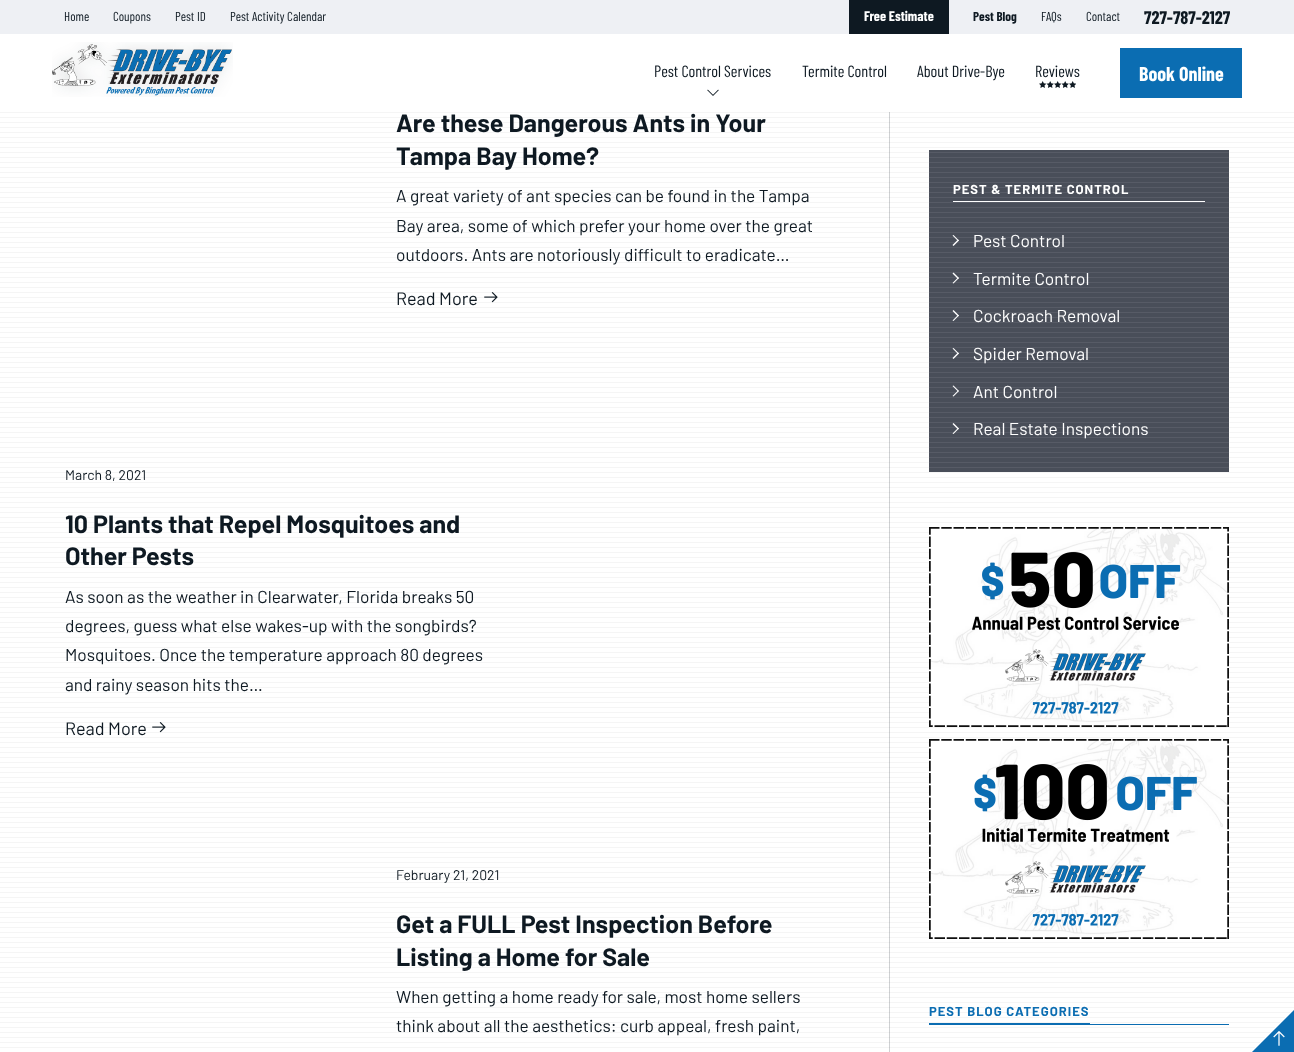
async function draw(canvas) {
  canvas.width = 1294;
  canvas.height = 1052;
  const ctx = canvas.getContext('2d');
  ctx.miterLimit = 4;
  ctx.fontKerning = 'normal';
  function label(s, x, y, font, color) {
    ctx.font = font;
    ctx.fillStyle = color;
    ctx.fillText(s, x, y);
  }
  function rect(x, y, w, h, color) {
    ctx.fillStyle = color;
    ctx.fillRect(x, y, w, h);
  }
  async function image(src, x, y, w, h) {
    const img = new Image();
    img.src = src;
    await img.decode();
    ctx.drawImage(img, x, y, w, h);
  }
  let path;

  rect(0, 0, 1294, 1052, '#fff');
  await image('assets/img1.png', 0, 112, 1294, 936);
  rect(0, 0, 1294, 34, '#eef0f4');
  label('Home', 64, 21, '13px Barlow Condensed', '#0e1922');
  label('Coupons', 113, 21, '13px Barlow Condensed', '#0e1922');
  label('Pest ID', 175, 21, '13px Barlow Condensed', '#0e1922');
  label('Pest Activity Calendar', 230, 21, '13px Barlow Condensed', '#0e1922');
  rect(849, 0, 100, 34, '#0e1922');
  label('Free Estimate', 864, 21, 'bold 14px Barlow Condensed', '#fff');
  label('Pest Blog', 973, 21, 'bold 13px Barlow Condensed', '#0e1922');
  label('FAQs', 1041, 21, '13px Barlow Condensed', '#0e1922');
  label('Contact', 1086, 21, '13px Barlow Condensed', '#0e1922');
  label('727-787-2127', 1144, 24, 'bold 18.25px Barlow Condensed', '#0e1922');
  await image('assets/img2.png', 52, 42, 181, 55);
  label('Pest Control Services', 654, 77, '16.25px Barlow Condensed', '#0e1922');
  await image('assets/img3.png', 707, 89, 12, 7);
  label('Termite Control', 802, 77, '16.25px Barlow Condensed', '#0e1922');
  label('About Drive-Bye', 917, 77, '16.25px Barlow Condensed', '#0e1922');
  label('Reviews', 1035, 77, '16.25px Barlow Condensed', '#0e1922');
  await image('assets/img4.png', 1039, 81, 37, 7);
  rect(1120, 48, 122, 50, '#0b6db2');
  label('Book Online', 1139, 81, 'bold 20px Barlow Condensed', '#fff');
  label('Are these Dangerous Ants in Your', 396, 132, 'bold 25px Barlow', '#0e1922');
  label('Tampa Bay Home?', 396, 165, 'bold 25px Barlow', '#0e1922');
  label('A great variety of ant species can be found in the Tampa', 396, 202, '17.25px Barlow', '#0e1922');
  label('Bay area, some of which prefer your home over the great', 396, 232, '17.25px Barlow', '#0e1922');
  label('outdoors. Ants are notoriously difficult to eradicate…', 396, 261, '17.25px Barlow', '#0e1922');
  label('Read More', 396, 305, '18px Barlow', '#0e1922');
  await image('assets/img5.png', 484, 292, 14, 11);
  label('March 8, 2021', 65, 480, '14px Barlow', '#0e1922');
  label('10 Plants that Repel Mosquitoes and', 65, 533, 'bold 25px Barlow', '#0e1922');
  label('Other Pests', 65, 565, 'bold 25px Barlow', '#0e1922');
  label('As soon as the weather in Clearwater, Florida breaks 50', 65, 603, '17.25px Barlow', '#0e1922');
  label('degrees, guess what else wakes-up with the songbirds?', 65, 632, '17.25px Barlow', '#0e1922');
  label('Mosquitoes. Once the temperature approach 80 degrees', 65, 661, '17.25px Barlow', '#0e1922');
  label('and rainy season hits the…', 65, 691, '17.25px Barlow', '#0e1922');
  label('Read More', 65, 735, '18px Barlow', '#0e1922');
  await image('assets/img5.png', 152, 722, 14, 11);
  label('February 21, 2021', 396, 880, '14px Barlow', '#0e1922');
  label('Get a FULL Pest Inspection Before', 396, 933, 'bold 25px Barlow', '#0e1922');
  label('Listing a Home for Sale', 396, 966, 'bold 25px Barlow', '#0e1922');
  label('When getting a home ready for sale, most home sellers', 396, 1003, '17.25px Barlow', '#0e1922');
  label('think about all the aesthetics: curb appeal, fresh paint,', 396, 1032, '17.25px Barlow', '#0e1922');
  rect(889, 112, 1, 940, '#0e192233');
  rect(929, 150, 300, 322, '#494e59');
  await image('assets/img6.png', 929, 152, 300, 316);
  rect(953, 201, 252, 1, '#fff');
  ctx.letterSpacing = '1px';
  label('PEST & TERMITE CONTROL', 953, 194, 'bold 13px Barlow', '#fff');
  path = new Path2D('M953.5 235L959 240.5L958 241L952.5 235.5Z');
  ctx.fill(path);
  path = new Path2D('M958 239.5L959 240.5L953.5 246L952.5 245Z');
  ctx.fill(path);
  ctx.letterSpacing = '0px';
  label('Pest Control', 973, 247, '17.25px Barlow', '#fff');
  path = new Path2D('M953.5 272.5L959 278L958 279L952.5 273.5Z');
  ctx.fill(path);
  path = new Path2D('M958 277.5L959 278L953.5 283.5L952.5 283Z');
  ctx.fill(path);
  label('Termite Control', 973, 285, '17.25px Barlow', '#fff');
  path = new Path2D('M953.5 310L959 315.5L958 316.5L952.5 311Z');
  ctx.fill(path);
  path = new Path2D('M958 315L959 315.5L953.5 321L952.5 320.5Z');
  ctx.fill(path);
  label('Cockroach Removal', 973, 322, '17.25px Barlow', '#fff');
  path = new Path2D('M953.5 348L959 353.5L958 354L952.5 348.5Z');
  ctx.fill(path);
  path = new Path2D('M958 352.5L959 353.5L953.5 359L952.5 358Z');
  ctx.fill(path);
  label('Spider Removal', 973, 360, '17.25px Barlow', '#fff');
  path = new Path2D('M953.5 385.5L959 391L958 391.5L952.5 386Z');
  ctx.fill(path);
  path = new Path2D('M958 390.5L959 391L953.5 396.5L952.5 396Z');
  ctx.fill(path);
  label('Ant Control', 973, 398, '17.25px Barlow', '#fff');
  path = new Path2D('M953.5 423L959 428.5L958 429.5L952.5 424Z');
  ctx.fill(path);
  path = new Path2D('M958 428L959 428.5L953.5 434L952.5 433.5Z');
  ctx.fill(path);
  label('Real Estate Inspections', 973, 435, '17.25px Barlow', '#fff');
  await image('assets/img7.png', 929, 527, 300, 200);
  await image('assets/img8.png', 929, 739, 300, 200);
  rect(1090, 1024, 139, 1, '#0b6db2');
  rect(929, 1023, 161, 2, '#0b6db2');
  ctx.letterSpacing = '1px';
  label('PEST BLOG CATEGORIES', 929, 1016, 'bold 13px Barlow', '#0b6db2');
  path = new Path2D('M1294 1009L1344 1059L1294 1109L1244 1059Z');
  ctx.strokeStyle = '#fff';
  ctx.stroke(path);
  path = new Path2D('M1294 1010L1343 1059L1294 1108L1245 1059Z');
  ctx.fill(path);
  await image('assets/img9.png', 1273, 1031, 12, 15);
}

draw(document.querySelector('canvas'));
